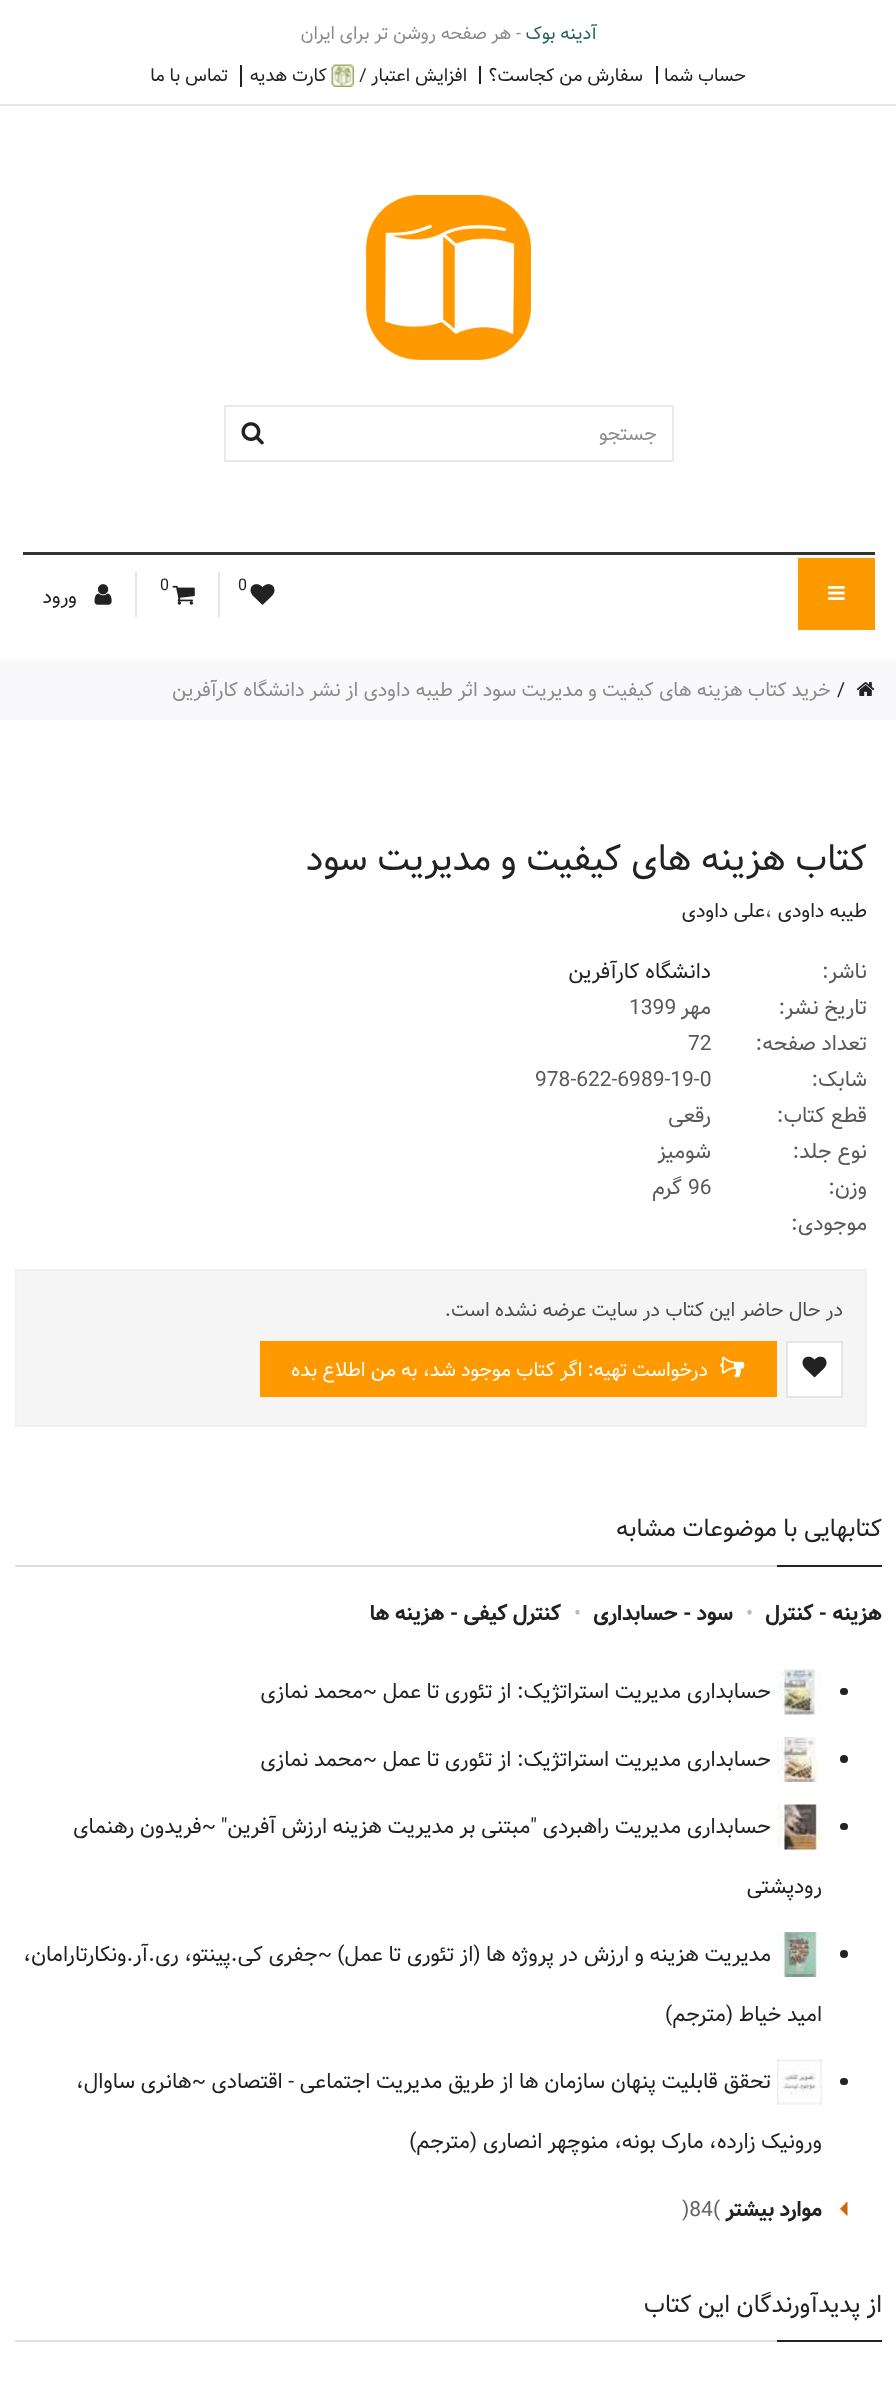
async function draw(canvas) {
  canvas.width = 896;
  canvas.height = 2391;
  const ctx = canvas.getContext('2d');
  ctx.miterLimit = 4;
  ctx.fontKerning = 'normal';
  function label(s, x, y, font, color) {
    ctx.font = font;
    ctx.fillStyle = color;
    ctx.fillText(s, x, y);
  }
  function rect(x, y, w, h, color) {
    ctx.fillStyle = color;
    ctx.fillRect(x, y, w, h);
  }
  function roundedRect(x, y, w, h, r, color) {
    ctx.fillStyle = color;
    ctx.beginPath();
    ctx.roundRect(x, y, w, h, r);
    ctx.fill();
  }
  async function image(src, x, y, w, h) {
    const img = new Image();
    img.src = src;
    await img.decode();
    ctx.drawImage(img, x, y, w, h);
  }

  rect(0, 0, 896, 2391, '#fff');
  rect(0, 104, 896, 2, '#e5e5e5');
  ctx.direction = 'rtl';
  label('آدینه بوک', 597, 39, '18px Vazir', '#276658');
  label('- هر صفحه روشن تر برای ایران', 521, 39, '18px Vazir', '#8c8c8c');
  rect(656, 66, 2, 18, '#222');
  label('حساب شما', 746, 81, '18px Vazir', '#222');
  rect(479, 66, 2, 18, '#222');
  label('سفارش من کجاست؟', 643, 81, '18px Vazir', '#222');
  rect(240, 65, 2, 22, '#222');
  label('افزایش اعتبار /', 467, 81, '18px Vazir', '#222');
  await image('assets/img1.png', 331, 64, 23, 23);
  label('کارت هدیه', 327, 81, '18px Vazir', '#222');
  label('تماس با ما', 228, 81, '18px Vazir', '#222');
  await image('assets/img2.png', 366, 195, 165, 165);
  ctx.strokeStyle = '#e9e9e9';
  ctx.lineWidth = 2;
  ctx.strokeRect(225, 406, 448, 55);
  label('جستجو', 657, 440, '19.5px Vazir', '#8c8c8c');
  await image('assets/img3.png', 241, 422, 23, 23);
  rect(23, 552, 852, 3, '#333');
  rect(798, 558, 77, 72, '#f90');
  await image('assets/img4.png', 828, 586, 17, 14);
  await image('assets/img5.png', 250, 584, 25, 21);
  ctx.direction = 'ltr';
  label('0', 238, 590, '16px Vazir', '#222');
  rect(218, 572, 2, 45, '#e5e5e5');
  await image('assets/img6.png', 172, 585, 23, 20);
  label('0', 160, 590, '16px Vazir', '#222');
  rect(135, 572, 2, 45, '#e5e5e5');
  await image('assets/img7.png', 94, 584, 18, 21);
  ctx.direction = 'rtl';
  label('ورود', 77, 603, '19.5px Vazir', '#222');
  rect(0, 660, 896, 60, '#f9f9fb');
  await image('assets/img8.png', 856, 682, 19, 14);
  ctx.direction = 'ltr';
  label('/', 837, 696, '19.5px Vazir', '#222');
  ctx.direction = 'rtl';
  label('خرید کتاب هزینه های کیفیت و مدیریت سود اثر طیبه داودی از نشر دانشگاه کارآفرین', 831, 696, '19.5px Vazir', '#8c8c8c');
  label('کتاب هزینه های کیفیت و مدیریت سود', 867, 870, '36px Vazir', '#222');
  label('طیبه داودی', 867, 917, '19.5px Vazir', '#222');
  ctx.direction = 'ltr';
  label('،', 765, 917, '19.5px Vazir', '#4d4d4d');
  ctx.direction = 'rtl';
  label('علی داودی', 765, 917, '19.5px Vazir', '#222');
  label('ناشر:', 867, 978, '21px Vazir', '#595959');
  label('دانشگاه کارآفرین', 711, 978, '21px Vazir', '#222');
  label('تاریخ نشر:', 867, 1014, '21px Vazir', '#595959');
  label('مهر', 711, 1014, '21px Vazir', '#595959');
  ctx.direction = 'ltr';
  label('1399', 629, 1014, '21px Vazir', '#595959');
  ctx.direction = 'rtl';
  label('تعداد صفحه:', 867, 1050, '21px Vazir', '#595959');
  ctx.direction = 'ltr';
  label('72', 688, 1050, '21px Vazir', '#595959');
  ctx.direction = 'rtl';
  label('شابک:', 867, 1086, '21px Vazir', '#595959');
  ctx.direction = 'ltr';
  label('978-622-6989-19-0', 535, 1086, '21px Vazir', '#595959');
  ctx.direction = 'rtl';
  label('قطع کتاب:', 867, 1122, '21px Vazir', '#595959');
  label('رقعی', 711, 1122, '21px Vazir', '#595959');
  label('نوع جلد:', 867, 1158, '21px Vazir', '#595959');
  label('شومیز', 711, 1158, '21px Vazir', '#595959');
  label('وزن:', 867, 1194, '21px Vazir', '#595959');
  ctx.direction = 'ltr';
  label('96', 688, 1194, '21px Vazir', '#595959');
  ctx.direction = 'rtl';
  label('گرم', 682, 1194, '21px Vazir', '#595959');
  label('موجودی:', 867, 1230, '21px Vazir', '#595959');
  ctx.fillStyle = '#f5f5f5';
  ctx.beginPath();
  ctx.rect(16, 1270, 850, 156);
  ctx.fill();
  ctx.strokeStyle = '#f0f0f2';
  ctx.stroke();
  label('در حال حاضر این کتاب در سایت عرضه نشده است.', 843, 1316, '19.5px Vazir', '#4d4d4d');
  ctx.fillStyle = '#fff';
  ctx.beginPath();
  ctx.rect(787, 1342, 55, 55);
  ctx.fill();
  ctx.strokeStyle = '#e5e5e5';
  ctx.stroke();
  await image('assets/img9.png', 802, 1356, 25, 22);
  rect(260, 1341, 517, 56, '#f90');
  await image('assets/img10.png', 720, 1356, 25, 22);
  label('درخواست تهیه: اگر کتاب موجود شد، به من اطلاع بده', 708, 1376, '19.5px Vazir', '#fff');
  rect(15, 1565, 762, 2, '#ddd');
  label('کتابهایی با موضوعات مشابه', 882, 1536, '24px Vazir', '#222');
  rect(777, 1565, 105, 2, '#222');
  label('هزینه - کنترل', 882, 1620, 'bold 21px Vazir', '#222');
  ctx.direction = 'ltr';
  label('•', 746, 1620, '21px Vazir', '#bbb');
  ctx.direction = 'rtl';
  label('سود - حسابداری', 733, 1620, 'bold 21px Vazir', '#222');
  ctx.direction = 'ltr';
  label('•', 574, 1620, '21px Vazir', '#bbb');
  ctx.direction = 'rtl';
  label('کنترل کیفی - هزینه ها', 561, 1620, 'bold 21px Vazir', '#222');
  roundedRect(840, 1688, 8, 7, 3.5, '#222');
  await image('assets/img11.png', 777, 1669, 45, 46);
  label('حسابداری مدیریت استراتژیک: از تئوری تا عمل', 771, 1698, '21px Vazir', '#222');
  label('~محمد نمازی', 377, 1698, '21px Vazir', '#222');
  ctx.beginPath();
  ctx.arc(844, 1759, 4, 0, 2 * Math.PI);
  ctx.fill();
  await image('assets/img12.png', 777, 1737, 42, 45);
  label('حسابداری مدیریت استراتژیک: از تئوری تا عمل', 771, 1766, '21px Vazir', '#222');
  label('~محمد نمازی', 377, 1766, '21px Vazir', '#222');
  roundedRect(840, 1823, 8, 7, 3.5, '#222');
  await image('assets/img13.png', 777, 1804, 45, 46);
  label('حسابداری مدیریت راهبردی "مبتنی بر مدیریت هزینه ارزش آفرین"', 771, 1833, '21px Vazir', '#222');
  label('~فریدون رهنمای', 216, 1833, '21px Vazir', '#222');
  label('رودپشتی', 822, 1893, '21px Vazir', '#222');
  ctx.beginPath();
  ctx.arc(844, 1954, 4, 0, 2 * Math.PI);
  ctx.fill();
  await image('assets/img14.png', 777, 1932, 45, 45);
  label('مدیریت هزینه و ارزش در پروژه ها (از تئوری تا عمل)', 771, 1961, '21px Vazir', '#222');
  label('~جفری کی.پینتو، ری.آر.ونکارتارامان،', 332, 1961, '21px Vazir', '#222');
  label('امید خیاط (مترجم)', 822, 2021, '21px Vazir', '#222');
  roundedRect(840, 2078, 8, 7, 3.5, '#222');
  await image('assets/img15.png', 777, 2059, 45, 46);
  label('تحقق قابلیت پنهان سازمان ها از طریق مدیریت اجتماعی - اقتصادی', 771, 2088, '21px Vazir', '#222');
  label('~هانری ساوال،', 206, 2088, '21px Vazir', '#222');
  label('ورونیک زارده، مارک بونه، منوچهر انصاری (مترجم)', 822, 2148, '21px Vazir', '#222');
  await image('assets/img16.png', 839, 2202, 9, 14);
  label('موارد بیشتر', 822, 2216, 'bold 21px Vazir', '#222');
  ctx.direction = 'ltr';
  label(')84(', 682, 2216, '21px Vazir', '#666');
  rect(15, 2340, 762, 2, '#ddd');
  ctx.direction = 'rtl';
  label('از پدیدآورندگان این کتاب', 882, 2312, '24px Vazir', '#222');
  rect(777, 2340, 105, 2, '#222');
}

draw(document.querySelector('canvas'));
